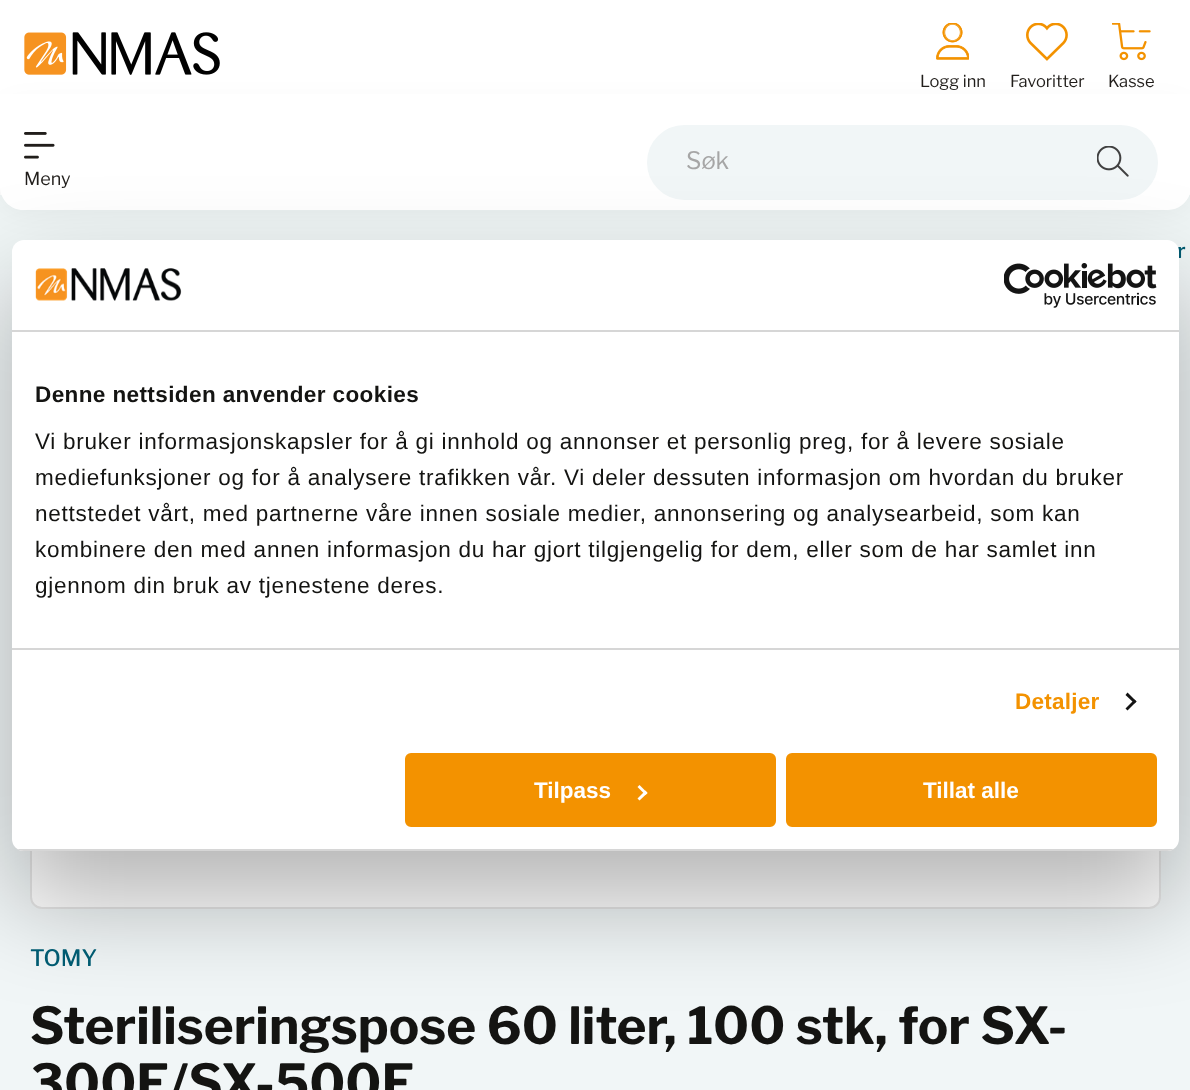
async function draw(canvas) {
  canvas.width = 1190;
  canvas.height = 1090;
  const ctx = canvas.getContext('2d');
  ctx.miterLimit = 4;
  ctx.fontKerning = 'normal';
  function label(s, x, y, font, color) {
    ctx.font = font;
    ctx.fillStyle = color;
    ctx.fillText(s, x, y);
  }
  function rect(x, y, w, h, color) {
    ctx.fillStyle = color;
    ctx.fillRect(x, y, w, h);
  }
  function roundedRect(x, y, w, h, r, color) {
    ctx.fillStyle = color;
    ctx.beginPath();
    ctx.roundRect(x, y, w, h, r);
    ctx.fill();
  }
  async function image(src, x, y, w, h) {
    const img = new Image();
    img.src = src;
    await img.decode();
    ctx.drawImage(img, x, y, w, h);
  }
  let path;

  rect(0, 0, 1190, 1090, '#fff');
  rect(0, 195, 1190, 74, '#f0f6f6');
  ctx.fillStyle = '#0000000f';
  ctx.filter = 'blur(15px)';
  ctx.beginPath();
  ctx.roundRect(0, 108, 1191, 102, 23);
  ctx.fill();
  ctx.filter = 'none';
  rect(0, 94, 1190, 14, '#fff');
  await image('assets/img1.png', 24, 32, 196, 43);
  await image('assets/img2.png', 936, 23, 33, 37);
  label('Logg inn', 920, 87, '16.5px Libre Franklin', '#211e1b');
  await image('assets/img3.png', 1026, 23, 42, 38);
  label('Favoritter', 1010, 87, '16.5px Libre Franklin', '#211e1b');
  await image('assets/img4.png', 1112, 23, 39, 38);
  label('Kasse', 1108, 87, '16.5px Libre Franklin', '#211e1b');
  ctx.fillStyle = '#fff';
  path = new Path2D('M0 108H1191V187C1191 199.5 1180.5 210 1168 210H23C10.5 210 0 199.5 0 187Z');
  ctx.fill(path);
  ctx.fillStyle = '#f1f6f7';
  ctx.beginPath();
  ctx.roundRect(648.5, 126.5, 508, 72, 36);
  ctx.fill();
  ctx.strokeStyle = '#f1f6f7';
  ctx.lineWidth = 3;
  ctx.stroke();
  label('Søk', 686, 169, '24px Libre Franklin', '#a6a6a6');
  await image('assets/img5.png', 1097, 146, 32, 31);
  await image('assets/img6.png', 24, 132, 31, 27);
  label('Meny', 24, 185, '18px Libre Franklin', '#211e1b');
  label('r', 1177, 258, '600 21px Libre Franklin', '#005b71');
  rect(0, 269, 1190, 821, '#f1f6f7');
  ctx.fillStyle = '#fff';
  ctx.beginPath();
  ctx.roundRect(31, 307, 1129, 601, 11);
  ctx.fill();
  ctx.strokeStyle = '#e6e6e6';
  ctx.lineWidth = 2;
  ctx.stroke();
  ctx.fillStyle = '#0000004d';
  ctx.filter = 'blur(51px)';
  ctx.beginPath();
  ctx.roundRect(12, 288, 1167, 611, 12);
  ctx.fill();
  ctx.filter = 'none';
  roundedRect(12, 240, 1167, 611, 12, '#fff');
  rect(12, 330, 1167, 2, '#d6d6d6');
  await image('assets/img7.png', 35, 268, 147, 33);
  await image('assets/img8.png', 1004, 263, 153, 45);
  rect(12, 648, 1167, 2, '#d6d6d6');
  ctx.letterSpacing = '0.4px';
  label('Denne nettsiden anvender cookies', 35, 402, 'bold 22.5px Liberation Sans', '#141412');
  ctx.letterSpacing = '0.75px';
  label('Vi bruker informasjonskapsler for å gi innhold og annonser et personlig preg, for å levere sosiale', 35, 449, '22.5px Liberation Sans', '#141412');
  label('mediefunksjoner og for å analysere trafikken vår. Vi deler dessuten informasjon om hvordan du bruker', 35, 485, '22.5px Liberation Sans', '#141412');
  label('nettstedet vårt, med partnerne våre innen sosiale medier, annonsering og analysearbeid, som kan', 35, 521, '22.5px Liberation Sans', '#141412');
  label('kombinere den med annen informasjon du har gjort tilgjengelig for dem, eller som de har samlet inn', 35, 557, '22.5px Liberation Sans', '#141412');
  label('gjennom din bruk av tjenestene deres.', 35, 593, '22.5px Liberation Sans', '#141412');
  ctx.letterSpacing = '0.25px';
  label('Detaljer', 1015, 709, 'bold 22.5px Liberation Sans', '#f39200');
  ctx.fillStyle = '#141414';
  path = new Path2D('M1127.5 692.5L1136.5 701.5L1134.5 703.5L1125.5 695Z');
  ctx.fill(path);
  path = new Path2D('M1134.5 699.5L1136.5 701.5L1127.5 710.5L1125.5 708.5Z');
  ctx.fill(path);
  ctx.save();
  ctx.beginPath();
  ctx.roundRect(12, 240, 1167, 611, 12);
  ctx.clip();
  rect(12, 849, 1167, 2, '#d6d6d6');
  ctx.restore();
  ctx.fillStyle = '#f39200';
  ctx.beginPath();
  ctx.roundRect(406.5, 754.5, 368, 71, 4.5);
  ctx.fill();
  ctx.strokeStyle = '#f39200';
  ctx.lineWidth = 3;
  ctx.stroke();
  ctx.letterSpacing = '0px';
  label('Tilpass', 534, 798, 'bold 22.5px Liberation Sans', '#fff');
  path = new Path2D('M639.5 785L647.5 793L645.5 795L637.5 787Z');
  ctx.fill(path);
  path = new Path2D('M645.5 790.5L647.5 793L639.5 800.5L637.5 798.5Z');
  ctx.fill(path);
  ctx.fillStyle = '#f39200';
  ctx.beginPath();
  ctx.roundRect(787.5, 754.5, 368, 71, 4.5);
  ctx.fill();
  ctx.stroke();
  label('Tillat alle', 923, 798, 'bold 22.5px Liberation Sans', '#fff');
  label('TOMY', 30, 966, '500 22.5px Libre Franklin', '#005b71');
  label('Steriliseringspose 60 liter, 100 stk, for SX-', 30, 1044, 'bold 51px Libre Franklin', '#141412');
  label('300E/SX-500E', 30, 1101, 'bold 51px Libre Franklin', '#141412');
}

draw(document.querySelector('canvas'));
